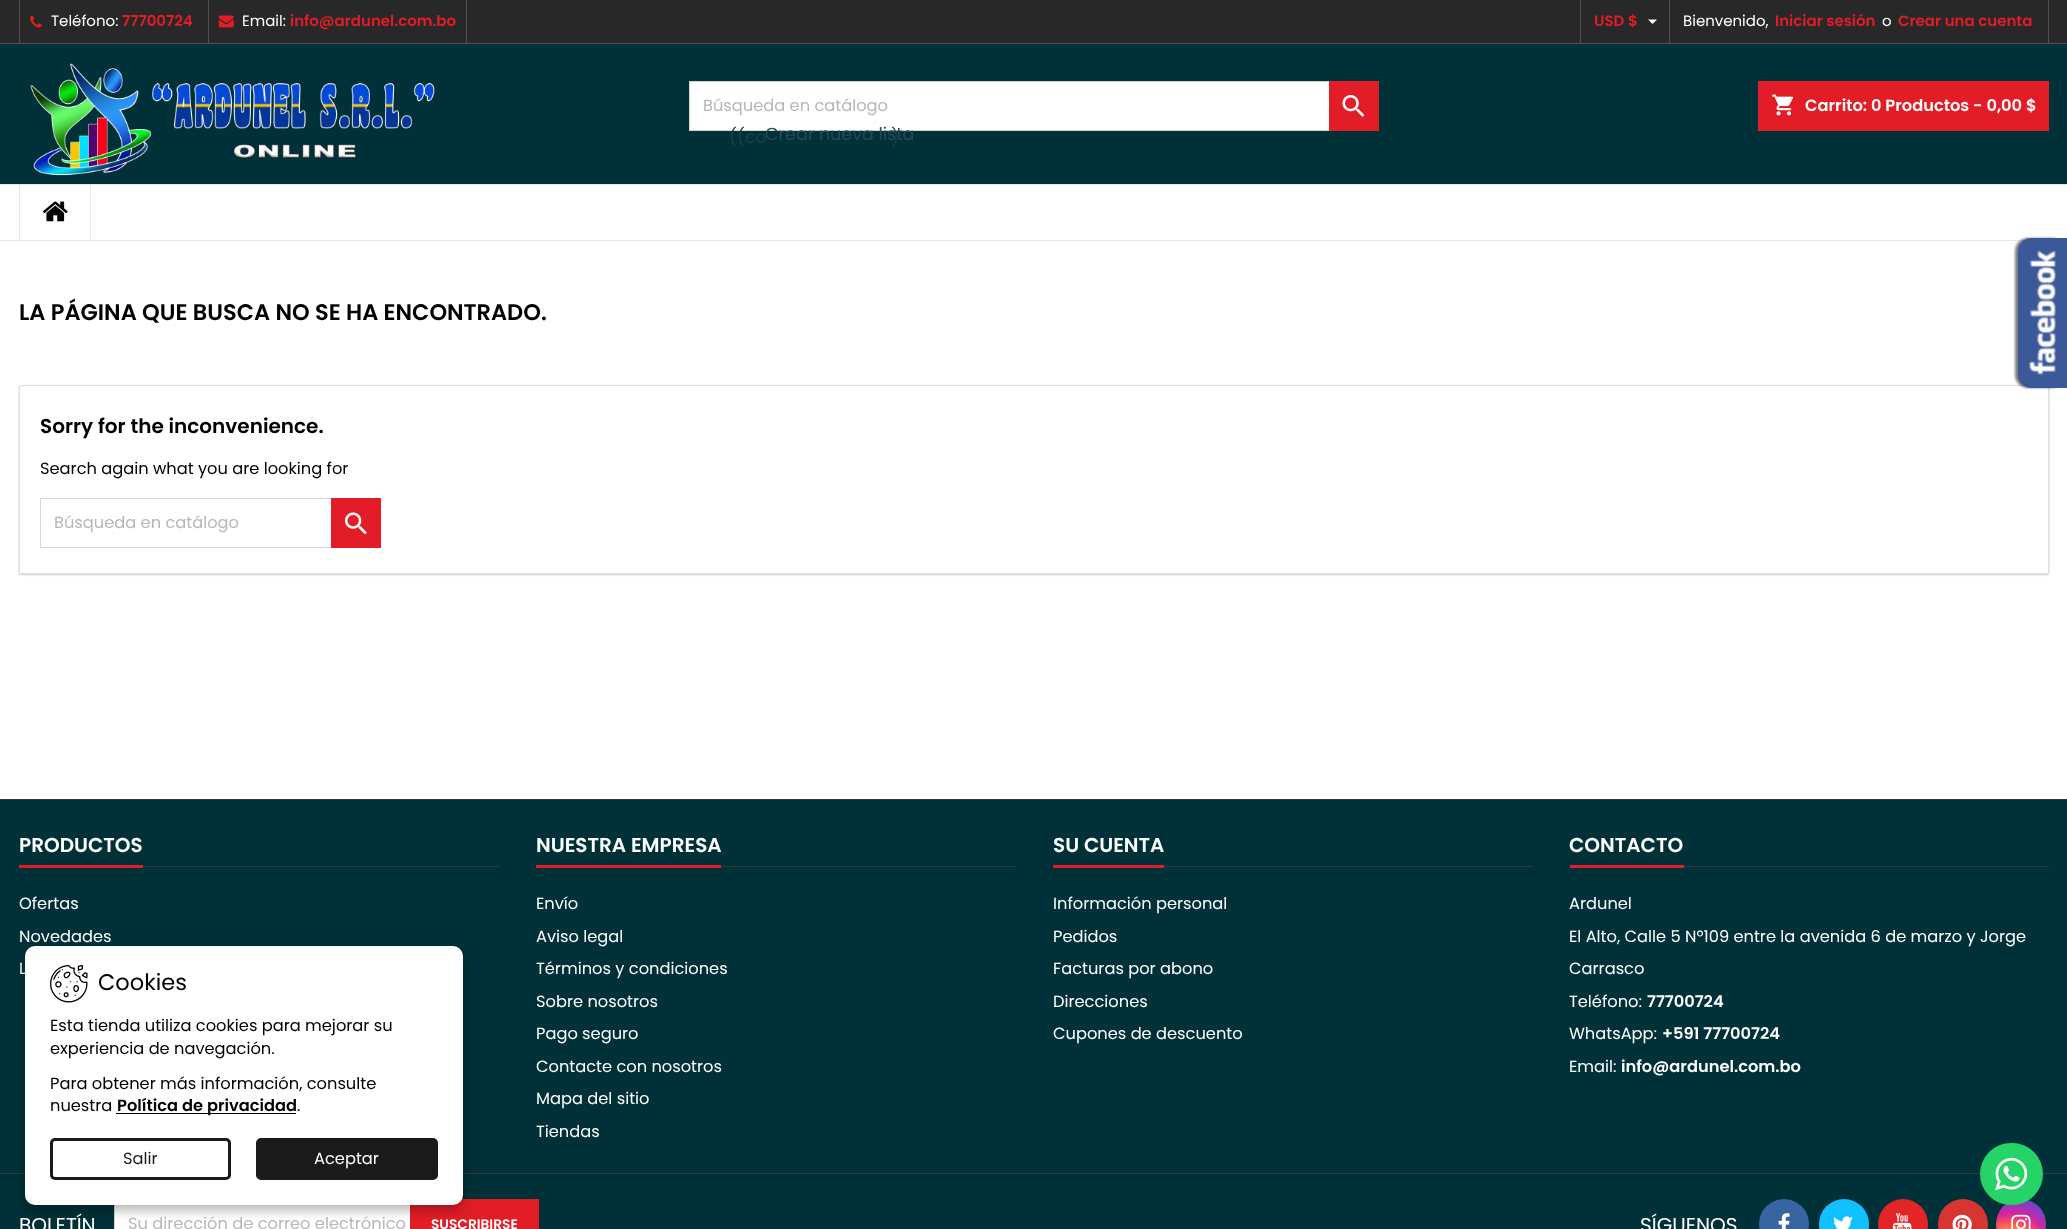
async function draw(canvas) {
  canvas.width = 2067;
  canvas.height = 1229;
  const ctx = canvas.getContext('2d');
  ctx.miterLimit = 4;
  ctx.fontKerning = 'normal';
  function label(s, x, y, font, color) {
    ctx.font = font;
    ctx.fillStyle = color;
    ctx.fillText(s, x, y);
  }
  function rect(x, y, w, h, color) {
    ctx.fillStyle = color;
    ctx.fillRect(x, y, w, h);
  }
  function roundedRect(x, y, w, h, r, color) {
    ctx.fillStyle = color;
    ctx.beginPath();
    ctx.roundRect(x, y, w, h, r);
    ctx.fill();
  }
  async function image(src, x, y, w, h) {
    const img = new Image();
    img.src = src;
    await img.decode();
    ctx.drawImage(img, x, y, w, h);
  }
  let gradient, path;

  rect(0, 0, 2067, 1229, '#fff');
  rect(0, 0, 2067, 43, '#292828');
  rect(0, 43, 2067, 1, '#525252');
  rect(19, 0, 1, 43, '#525252');
  await image('assets/img1.png', 30, 15, 12, 13);
  label('Teléfono:', 51, 26, '15px Poppins', '#fff');
  label('77700724', 122, 26, '600 15px Poppins', '#e31d27');
  rect(466, 0, 1, 43, '#525252');
  rect(208, 0, 1, 43, '#525252');
  await image('assets/img2.png', 218, 15, 16, 13);
  label('Email:', 242, 26, '15px Poppins', '#fff');
  label('info@ardunel.com.bo', 290, 26, '600 15px Poppins', '#e31d27');
  rect(1580, 0, 1, 43, '#525252');
  label('USD $', 1594, 26, '600 15px Poppins', '#e31d27');
  ctx.fillStyle = '#fff';
  path = new Path2D('M1648 19.5H1657L1652.5 24Z');
  ctx.fill(path);
  rect(2048, 0, 1, 43, '#525252');
  rect(1669, 0, 1, 43, '#525252');
  label('Bienvenido,', 1683, 26, '15px Poppins', '#fff');
  label('Iniciar sesión', 1775, 26, '600 15px Poppins', '#e31d27');
  label('o', 1882, 26, '15px Poppins', '#fff');
  label('Crear una cuenta', 1898, 26, '600 15px Poppins', '#e31d27');
  rect(0, 44, 2067, 140, '#003138');
  await image('assets/img3.png', 30, 63, 405, 113);
  rect(690, 82, 639, 48, '#fff');
  ctx.strokeStyle = '#d6d4d4';
  ctx.strokeRect(689.5, 81.5, 689, 49);
  label('Búsqueda en catálogo', 703, 111, '16.25px Poppins', '#b7b7b7');
  rect(1329, 81, 50, 50, '#e31d27');
  await image('assets/img4.png', 1342, 95, 23, 22);
  rect(1758, 81, 291, 50, '#e31d27');
  await image('assets/img5.png', 1772, 94, 22, 22);
  label('Carrito: 0 Productos - 0,00 $', 1805, 111, '600 16.25px Poppins', '#fff');
  rect(0, 184, 2067, 1, '#e6e6e6');
  rect(0, 240, 2024, 1, '#e6e6e6');
  rect(90, 185, 1, 55, '#e6e6e6');
  rect(19, 185, 1, 55, '#e6e6e6');
  await image('assets/img6.png', 42, 201, 26, 21);
  rect(0, 800, 2067, 429, '#003138');
  rect(0, 799, 2067, 1, '#383838');
  label('Crear nueva lista', 765, 140, '17.5px Poppins', '#234c52');
  label('((co', 729, 143, '17.5px Poppins', '#154148');
  label(')', 891, 143, '17.5px Poppins', '#154148');
  rect(143, 866, 356, 1, '#383838');
  rect(19, 865, 124, 3, '#e31d27');
  label('PRODUCTOS', 19, 852, '600 20px Poppins', '#fff');
  label('Ofertas', 19, 909, '16.25px Poppins', '#fff');
  label('Novedades', 19, 942, '16.25px Poppins', '#fff');
  label('L', 19, 974, '16.25px Poppins', '#fff');
  rect(721, 866, 294, 1, '#383838');
  rect(536, 865, 185, 3, '#e31d27');
  label('NUESTRA EMPRESA', 536, 852, '600 20px Poppins', '#fff');
  label('Envío', 536, 909, '16.25px Poppins', '#fff');
  label('Aviso legal', 536, 942, '16.25px Poppins', '#fff');
  label('Términos y condiciones', 536, 974, '16.25px Poppins', '#fff');
  label('Sobre nosotros', 536, 1007, '16.25px Poppins', '#fff');
  label('Pago seguro', 536, 1039, '16.25px Poppins', '#fff');
  label('Contacte con nosotros', 536, 1072, '16.25px Poppins', '#fff');
  label('Mapa del sitio', 536, 1104, '16.25px Poppins', '#fff');
  label('Tiendas', 536, 1137, '16.25px Poppins', '#fff');
  rect(1164, 866, 369, 1, '#383838');
  rect(1053, 865, 111, 3, '#e31d27');
  label('SU CUENTA', 1053, 852, '600 20px Poppins', '#fff');
  label('Información personal', 1053, 909, '16.25px Poppins', '#fff');
  label('Pedidos', 1053, 942, '16.25px Poppins', '#fff');
  label('Facturas por abono', 1053, 974, '16.25px Poppins', '#fff');
  label('Direcciones', 1053, 1007, '16.25px Poppins', '#fff');
  label('Cupones de descuento', 1053, 1039, '16.25px Poppins', '#fff');
  rect(1684, 866, 365, 1, '#383838');
  rect(1570, 865, 114, 3, '#e31d27');
  label('CONTACTO', 1569, 852, '600 20px Poppins', '#fff');
  label('Ardunel', 1569, 909, '16.25px Poppins', '#fff');
  label('El Alto, Calle 5 Nº109 entre la avenida 6 de marzo y Jorge', 1569, 942, '16.25px Poppins', '#fff');
  label('Carrasco', 1569, 974, '16.25px Poppins', '#fff');
  label('Teléfono:', 1569, 1007, '16.25px Poppins', '#fff');
  label('77700724', 1647, 1007, '600 16.25px Poppins', '#fff');
  label('WhatsApp:', 1569, 1039, '16.25px Poppins', '#fff');
  label('+591 77700724', 1662, 1039, '600 16.25px Poppins', '#fff');
  label('Email:', 1569, 1072, '16.25px Poppins', '#fff');
  label('info@ardunel.com.bo', 1621, 1072, '600 16.25px Poppins', '#fff');
  rect(0, 1173, 2067, 1, '#383838');
  rect(115, 1205, 295, 24, '#fff');
  rect(410, 1199, 129, 30, '#e31d27');
  label('SUSCRIBIRSE', 431, 1229, '600 13.75px Poppins', '#fff');
  ctx.save();
  ctx.beginPath();
  ctx.rect(114, 1199, 296, 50);
  ctx.clip();
  ctx.strokeRect(114.5, 1199.5, 318, 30);
  ctx.restore();
  ctx.fillStyle = '#0000004d';
  ctx.filter = 'blur(6px)';
  ctx.beginPath();
  ctx.roundRect(25, 951, 438, 259, 10);
  ctx.fill();
  ctx.filter = 'none';
  roundedRect(25, 946, 438, 259, 10, '#fff');
  await image('assets/img7.png', 50, 965, 38, 38);
  label('Cookies', 98, 990, '22.5px Poppins', '#000');
  label('Esta tienda utiliza cookies para mejorar su', 50, 1031, '16.25px Poppins', '#000');
  label('experiencia de navegación.', 50, 1054, '16.25px Poppins', '#000');
  label('Para obtener más información, consulte', 50, 1089, '16.25px Poppins', '#000');
  label('nuestra', 50, 1111, '16.25px Poppins', '#000');
  rect(116, 1113, 180, 1, '#000');
  label('Política de privacidad', 117, 1111, '600 16.25px Poppins', '#000');
  label('.', 297, 1111, '16.25px Poppins', '#000');
  ctx.beginPath();
  ctx.roundRect(51.5, 1139.5, 178, 39, 3.5);
  ctx.strokeStyle = '#1b1a1b';
  ctx.lineWidth = 3;
  ctx.stroke();
  label('Salir', 123, 1164, '16.25px Poppins', '#1b1a1b');
  ctx.beginPath();
  ctx.roundRect(257.5, 1139.5, 179, 39, 3.5);
  ctx.fill();
  ctx.stroke();
  label('Aceptar', 314, 1164, '16.25px Poppins', '#fff');
  ctx.fillStyle = '#d73532';
  ctx.beginPath();
  ctx.arc(1963, 1224, 25, 0, 2 * Math.PI);
  ctx.fill();
  gradient = ctx.createRadialGradient(2011, 1252, 0, 2011, 1252, 64);
  gradient.addColorStop(0, '#fdf497');
  gradient.addColorStop(0.05, '#fdf497');
  gradient.addColorStop(0.45, '#fd5949');
  gradient.addColorStop(0.6, '#d6249f');
  gradient.addColorStop(1, '#285aeb');
  ctx.fillStyle = gradient;
  ctx.beginPath();
  ctx.arc(2021, 1224, 25, 0, 2 * Math.PI);
  ctx.fill();
  roundedRect(1980, 1143, 63, 62, 31, '#25d366');
  await image('assets/img8.png', 1995, 1157, 33, 34);
  label('BOLETÍN', 19, 1232, '20px Poppins', '#fff');
  label('Su dirección de correo electrónico', 128, 1229, '16.25px Poppins', '#b7b7b7');
  label('SÍGUENOS', 1640, 1232, '20px Poppins', '#fff');
  ctx.fillStyle = '#3765a3';
  ctx.beginPath();
  ctx.arc(1784, 1224, 25, 0, 2 * Math.PI);
  ctx.fill();
  await image('assets/img9.png', 1778, 1213, 12, 16);
  ctx.fillStyle = '#11c1ff';
  ctx.beginPath();
  ctx.arc(1844, 1224, 25, 0, 2 * Math.PI);
  ctx.fill();
  await image('assets/img10.png', 1833, 1216, 20, 13);
  ctx.fillStyle = '#e42526';
  ctx.beginPath();
  ctx.arc(1903, 1224, 25, 0, 2 * Math.PI);
  ctx.fill();
  await image('assets/img11.png', 1892, 1213, 20, 16);
  await image('assets/img12.png', 1952, 1214, 20, 15);
  await image('assets/img13.png', 2011, 1214, 20, 15);
  label('LA PÁGINA QUE BUSCA NO SE HA ENCONTRADO.', 19, 320, '600 22.5px Poppins', '#000');
  ctx.fillStyle = '#00000033';
  ctx.filter = 'blur(1px)';
  ctx.beginPath();
  ctx.rect(19, 386, 2030, 189);
  ctx.fill();
  ctx.filter = 'none';
  ctx.fillStyle = '#fff';
  ctx.beginPath();
  ctx.rect(19.5, 385.5, 2029, 188);
  ctx.fill();
  ctx.strokeStyle = '#dfdfdf';
  ctx.lineWidth = 1;
  ctx.stroke();
  label('Sorry for the inconvenience.', 40, 433, '600 20px Poppins', '#000');
  label('Search again what you are looking for', 40, 474, '16.25px Poppins', '#000');
  ctx.strokeStyle = '#d6d4d4';
  ctx.strokeRect(40.5, 498.5, 340, 49);
  label('Búsqueda en catálogo', 54, 528, '16.25px Poppins', '#b7b7b7');
  rect(331, 498, 50, 50, '#e31d27');
  await image('assets/img14.png', 345, 512, 22, 23);
  ctx.fillStyle = '#00000080';
  ctx.filter = 'blur(1px)';
  ctx.beginPath();
  ctx.roundRect(2015, 238, 50, 150, 13);
  ctx.fill();
  ctx.filter = 'none';
  ctx.fillStyle = '#3b5998';
  path = new Path2D('M2031 238H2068V388H2031C2024 388 2018 382 2018 375V251C2018 244 2024 238 2031 238Z');
  ctx.fill(path);
  await image('assets/img15.png', 2029, 250, 27, 125);
}

draw(document.querySelector('canvas'));
